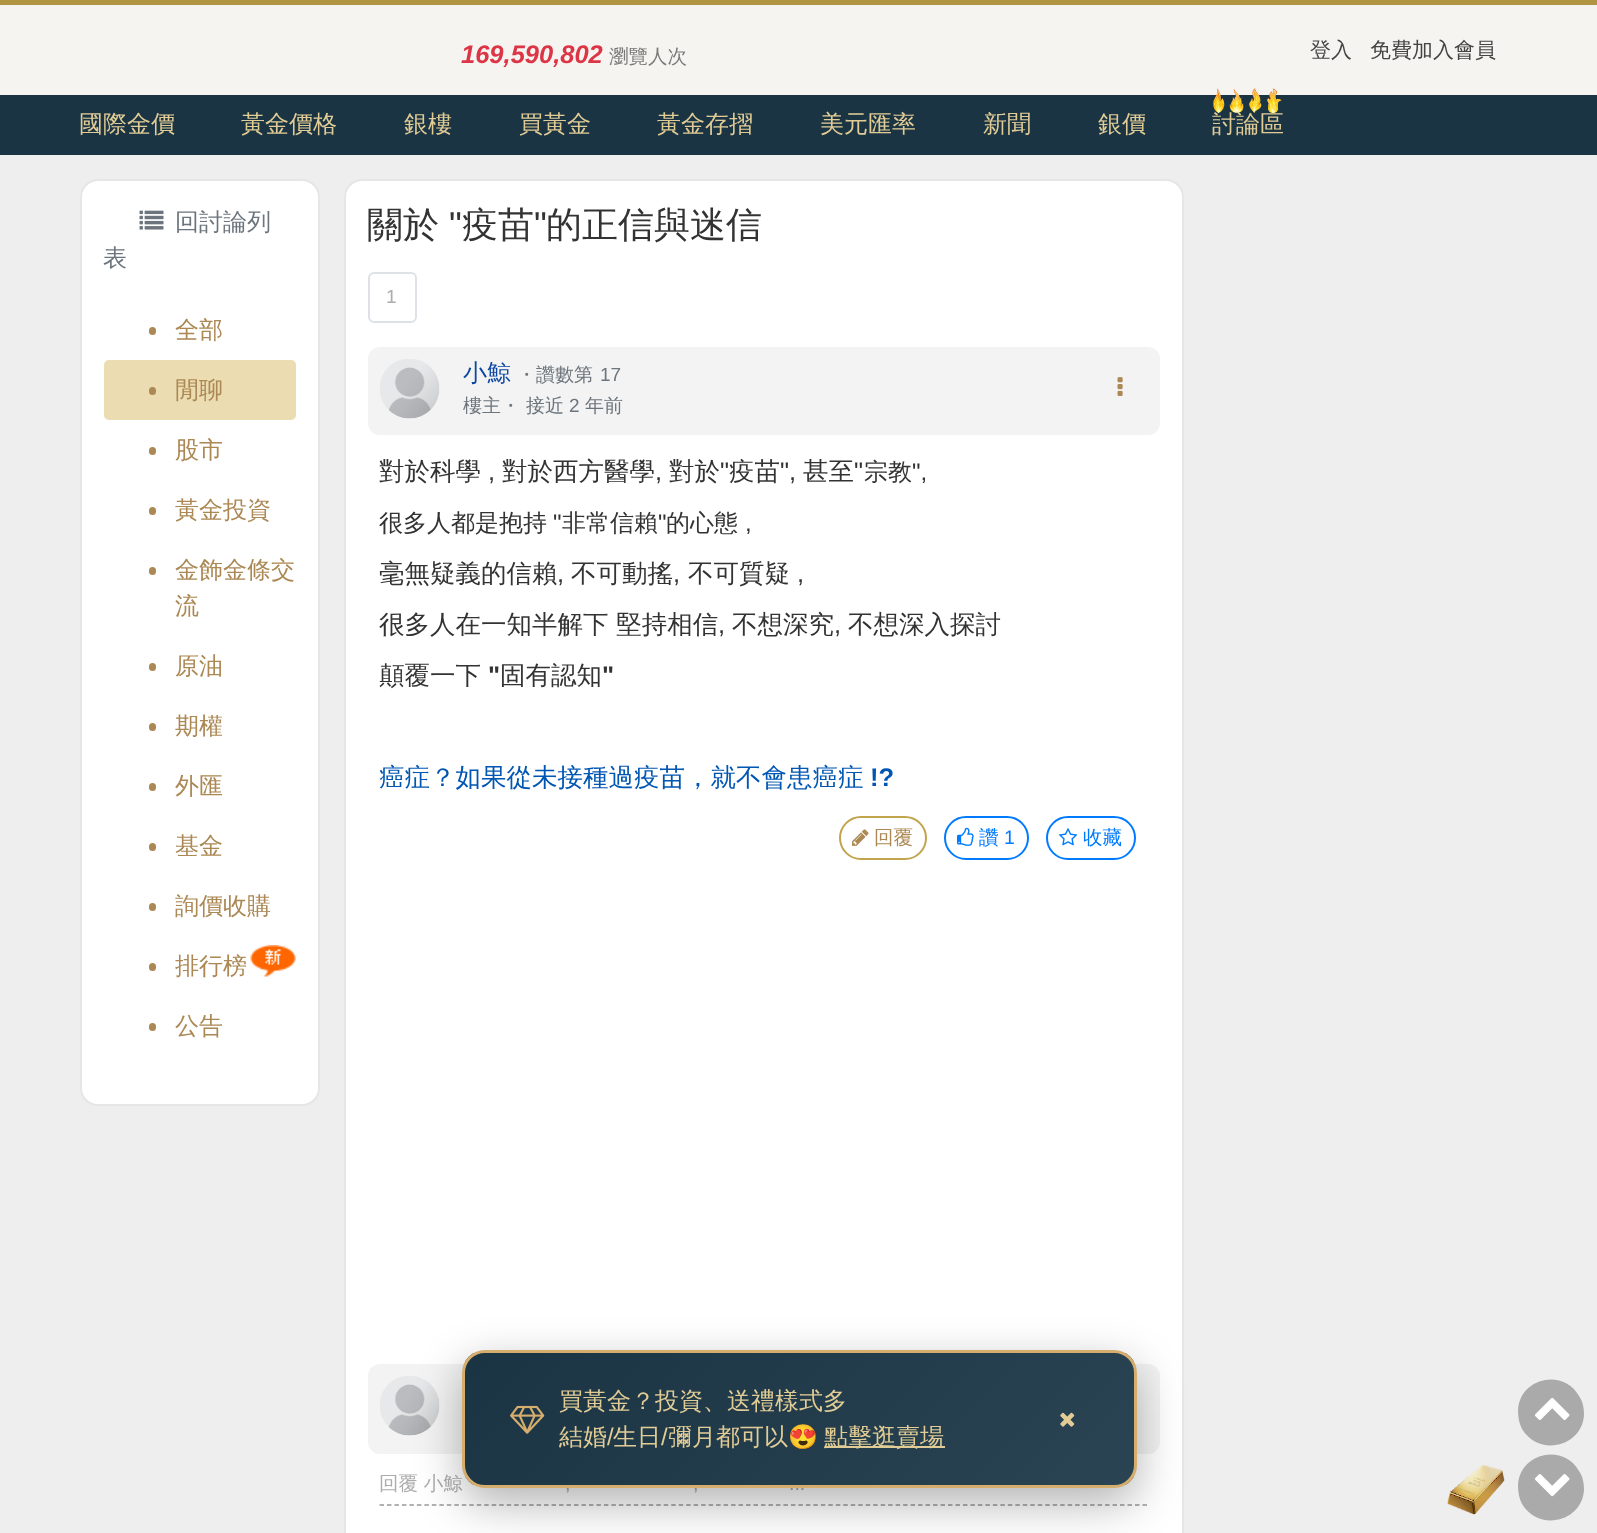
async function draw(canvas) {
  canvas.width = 1597;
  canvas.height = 1533;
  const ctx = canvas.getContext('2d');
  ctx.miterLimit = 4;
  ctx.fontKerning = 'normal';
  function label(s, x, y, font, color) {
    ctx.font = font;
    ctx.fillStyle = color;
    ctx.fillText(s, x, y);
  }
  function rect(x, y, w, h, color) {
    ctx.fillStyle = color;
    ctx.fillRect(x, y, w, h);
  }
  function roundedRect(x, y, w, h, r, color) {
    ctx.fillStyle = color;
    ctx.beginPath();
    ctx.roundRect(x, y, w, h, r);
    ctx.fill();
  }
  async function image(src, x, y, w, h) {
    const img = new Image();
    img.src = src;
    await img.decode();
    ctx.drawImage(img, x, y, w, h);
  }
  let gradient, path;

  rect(0, 0, 1597, 1533, '#eee');
  rect(0, 5, 1597, 90, '#f6f4f0');
  rect(0, 0, 1597, 5, '#b19441');
  label('169,590,802', 461, 63, 'italic bold 25.5px Liberation Sans', '#dc3545');
  label('瀏覽人次', 609, 63, '500 19.5px WenQuanYi Zen Hei', '#7b7a78');
  label('登入', 1310, 57, '500 21px WenQuanYi Zen Hei', '#444');
  label('免費加入會員', 1370, 57, '500 21px WenQuanYi Zen Hei', '#444');
  rect(0, 95, 1597, 60, '#1a3444');
  label('國際金價', 79, 132, '500 24px WenQuanYi Zen Hei', '#e1cc95');
  label('黃金價格', 241, 132, '500 24px WenQuanYi Zen Hei', '#e1cc95');
  label('銀樓', 404, 132, '500 24px WenQuanYi Zen Hei', '#e1cc95');
  label('買黃金', 519, 132, '500 24px WenQuanYi Zen Hei', '#e1cc95');
  label('黃金存摺', 657, 132, '500 24px WenQuanYi Zen Hei', '#e1cc95');
  label('美元匯率', 820, 132, '500 24px WenQuanYi Zen Hei', '#e1cc95');
  label('新聞', 983, 132, '500 24px WenQuanYi Zen Hei', '#e1cc95');
  label('銀價', 1098, 132, '500 24px WenQuanYi Zen Hei', '#e1cc95');
  label('討論區', 1212, 132, '500 24px WenQuanYi Zen Hei', '#e1cc95');
  await image('assets/img1.png', 1213, 88, 69, 26);
  ctx.fillStyle = '#fff';
  ctx.beginPath();
  ctx.roundRect(81, 180, 238, 925, 17);
  ctx.fill();
  ctx.strokeStyle = '#e6e6e6';
  ctx.lineWidth = 2;
  ctx.stroke();
  await image('assets/img2.png', 139, 210, 25, 20);
  label('回討論列', 175, 230, '500 24px WenQuanYi Zen Hei', '#6c757d');
  label('表', 103, 266, '500 24px WenQuanYi Zen Hei', '#6c757d');
  roundedRect(149, 327, 7, 8, 3.5, '#ab8854');
  label('全部', 175, 338, '500 24px WenQuanYi Zen Hei', '#ab8854');
  roundedRect(104, 360, 192, 60, 5, '#ecdcb1');
  roundedRect(149, 387, 7, 8, 3.5, '#ab8854');
  label('閒聊', 175, 398, '500 24px WenQuanYi Zen Hei', '#ab8854');
  roundedRect(149, 447, 7, 8, 3.5, '#ab8854');
  label('股市', 175, 458, '500 24px WenQuanYi Zen Hei', '#ab8854');
  roundedRect(149, 507, 7, 8, 3.5, '#ab8854');
  label('黃金投資', 175, 518, '500 24px WenQuanYi Zen Hei', '#ab8854');
  roundedRect(149, 567, 7, 8, 3.5, '#ab8854');
  label('金飾金條交', 175, 578, '500 24px WenQuanYi Zen Hei', '#ab8854');
  label('流', 175, 614, '500 24px WenQuanYi Zen Hei', '#ab8854');
  roundedRect(149, 663, 7, 8, 3.5, '#ab8854');
  label('原油', 175, 674, '500 24px WenQuanYi Zen Hei', '#ab8854');
  roundedRect(149, 723, 7, 8, 3.5, '#ab8854');
  label('期權', 175, 734, '500 24px WenQuanYi Zen Hei', '#ab8854');
  roundedRect(149, 783, 7, 8, 3.5, '#ab8854');
  label('外匯', 175, 794, '500 24px WenQuanYi Zen Hei', '#ab8854');
  roundedRect(149, 843, 7, 8, 3.5, '#ab8854');
  label('基金', 175, 854, '500 24px WenQuanYi Zen Hei', '#ab8854');
  roundedRect(149, 903, 7, 8, 3.5, '#ab8854');
  label('詢價收購', 175, 914, '500 24px WenQuanYi Zen Hei', '#ab8854');
  roundedRect(149, 963, 7, 8, 3.5, '#ab8854');
  label('排行榜', 175, 974, '500 24px WenQuanYi Zen Hei', '#ab8854');
  await image('assets/img3.png', 250, 945, 46, 32);
  roundedRect(149, 1023, 7, 8, 3.5, '#ab8854');
  label('公告', 175, 1034, '500 24px WenQuanYi Zen Hei', '#ab8854');
  ctx.fillStyle = '#fff';
  ctx.beginPath();
  ctx.roundRect(345, 180, 838, 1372, 17);
  ctx.fill();
  ctx.stroke();
  label('關於', 367, 237, '500 36px WenQuanYi Zen Hei', '#333');
  label('"', 449, 237, '36px Liberation Sans', '#333');
  label('疫苗', 462, 237, '500 36px WenQuanYi Zen Hei', '#333');
  label('"', 534, 237, '36px Liberation Sans', '#333');
  label('的正信與迷信', 546, 237, '500 36px WenQuanYi Zen Hei', '#333');
  ctx.beginPath();
  ctx.roundRect(369, 273, 47, 49, 5);
  ctx.strokeStyle = '#dee2e6';
  ctx.stroke();
  label('1', 386, 303, '19px Liberation Sans', '#acacac');
  roundedRect(368, 347, 792, 88, 12, '#f3f3f3');
  await image('assets/img4.png', 380, 359, 60, 60);
  label('小鯨', 463, 381, '500 24px WenQuanYi Zen Hei', '#0d47a1');
  label('・讚數第', 517, 381, '500 19px WenQuanYi Zen Hei', '#6c757d');
  label('17', 600, 381, '19px Liberation Sans', '#6c757d');
  label('樓主・', 463, 412, '500 19px WenQuanYi Zen Hei', '#6c757d');
  label('接近', 526, 412, '500 19px WenQuanYi Zen Hei', '#6c757d');
  label('2', 569, 412, '19px Liberation Sans', '#6c757d');
  label('年前', 585, 412, '500 19px WenQuanYi Zen Hei', '#6c757d');
  await image('assets/img5.png', 1117, 377, 6, 19);
  label('對於科學', 379, 480, '500 25.5px WenQuanYi Zen Hei', '#333');
  label(',', 488, 480, '25.5px Liberation Sans', '#333');
  label('對於西方醫學', 502, 480, '500 25.5px WenQuanYi Zen Hei', '#333');
  label(',', 655, 480, '25.5px Liberation Sans', '#333');
  label('對於', 669, 480, '500 25.5px WenQuanYi Zen Hei', '#333');
  label('"', 720, 480, '25.5px Liberation Sans', '#333');
  label('疫苗', 729, 480, '500 25.5px WenQuanYi Zen Hei', '#333');
  label('",', 780, 480, '25.5px Liberation Sans', '#333');
  label('甚至', 803, 480, '500 25.5px WenQuanYi Zen Hei', '#333');
  label('"', 854, 480, '25.5px Liberation Sans', '#333');
  label('宗教', 864, 480, '500 24px WenQuanYi Zen Hei', '#333');
  label('",', 912, 480, '24px Liberation Sans', '#333');
  label('很多人都是抱持', 379, 531, '500 24px WenQuanYi Zen Hei', '#333');
  label('"', 553, 531, '24px Liberation Sans', '#333');
  label('非常信賴', 562, 531, '500 24px WenQuanYi Zen Hei', '#333');
  label('"', 658, 531, '24px Liberation Sans', '#333');
  label('的心態', 666, 531, '500 24px WenQuanYi Zen Hei', '#333');
  label(',', 745, 531, '24px Liberation Sans', '#333');
  label('毫無疑義的信賴', 379, 582, '500 25.5px WenQuanYi Zen Hei', '#333');
  label(',', 557, 582, '25.5px Liberation Sans', '#333');
  label('不可動搖', 571, 582, '500 25.5px WenQuanYi Zen Hei', '#333');
  label(',', 673, 582, '25.5px Liberation Sans', '#333');
  label('不可質疑', 688, 582, '500 25.5px WenQuanYi Zen Hei', '#333');
  label(',', 797, 582, '25.5px Liberation Sans', '#333');
  label('很多人在一知半解下 堅持相信', 379, 633, '500 25.5px WenQuanYi Zen Hei', '#333');
  label(',', 718, 633, '25.5px Liberation Sans', '#333');
  label('不想深究', 732, 633, '500 25.5px WenQuanYi Zen Hei', '#333');
  label(',', 834, 633, '25.5px Liberation Sans', '#333');
  label('不想深入探討', 848, 633, '500 25.5px WenQuanYi Zen Hei', '#333');
  label('顛覆一下', 379, 684, '500 25.5px WenQuanYi Zen Hei', '#333');
  label('"', 488, 684, 'bold 25.5px Liberation Sans', '#333');
  label('固有認知', 500, 684, '500 25.5px WenQuanYi Zen Hei', '#333');
  label('"', 602, 684, 'bold 25.5px Liberation Sans', '#333');
  label('癌症？如果從未接種過疫苗，就不會患癌症', 379, 786, '500 25.5px WenQuanYi Zen Hei', '#0056b3');
  label('!?', 870, 786, 'bold 25.5px Liberation Sans', '#0056b3');
  ctx.beginPath();
  ctx.roundRect(840, 817, 86, 42, 21);
  ctx.strokeStyle = '#c2a44d';
  ctx.stroke();
  await image('assets/img6.png', 852, 829, 17, 17);
  label('回覆', 874, 844, '500 19.5px WenQuanYi Zen Hei', '#ab8854');
  ctx.beginPath();
  ctx.roundRect(945, 817, 83, 42, 21);
  ctx.strokeStyle = '#007bff';
  ctx.stroke();
  await image('assets/img7.png', 957, 827, 17, 19);
  label('讚', 979, 844, '500 19.5px WenQuanYi Zen Hei', '#007bff');
  label('1', 1004, 844, '19.5px Liberation Sans', '#007bff');
  ctx.beginPath();
  ctx.roundRect(1047, 817, 88, 42, 21);
  ctx.stroke();
  await image('assets/img8.png', 1059, 828, 19, 18);
  label('收藏', 1083, 844, '500 19.5px WenQuanYi Zen Hei', '#007bff');
  roundedRect(368, 1364, 792, 90, 12, '#f3f3f3');
  await image('assets/img4.png', 380, 1376, 60, 60);
  path = new Path2D('M379.5 1505H1147.5');
  ctx.strokeStyle = '#999';
  ctx.lineWidth = 1.5;
  ctx.setLineDash([4.5, 2.98]);
  ctx.stroke(path);
  label('回覆 小鯨', 379, 1490, '500 19.5px WenQuanYi Zen Hei', '#acacac');
  label(',', 565, 1490, '19.5px Liberation Sans', '#acacac');
  label(',', 693, 1490, '19.5px Liberation Sans', '#acacac');
  label('...', 789, 1490, '19.5px Liberation Sans', '#acacac');
  ctx.fillStyle = '#aaa';
  path = new Path2D('M1579 1396C1583 1402 1584 1408 1584 1415C1582 1447 1539 1457 1522 1429C1519 1423 1518 1417 1518 1410C1520 1378 1563 1368 1579 1396Z');
  ctx.fill(path);
  await image('assets/img9.png', 1535, 1397, 35, 23);
  ctx.fillStyle = '#0000004d';
  ctx.filter = 'blur(22.5px)';
  ctx.beginPath();
  ctx.roundRect(462, 1365, 675, 138, 23);
  ctx.fill();
  ctx.filter = 'none';
  ctx.save();
  ctx.beginPath();
  ctx.roundRect(462, 1350, 675, 138, 23);
  ctx.clip();
  gradient = ctx.createLinearGradient(599, 1219, 1000, 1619);
  gradient.addColorStop(0, '#1a3444');
  gradient.addColorStop(1, '#2a4454');
  ctx.fillStyle = gradient;
  ctx.fillRect(465, 1353, 669, 132);
  ctx.restore();
  ctx.beginPath();
  ctx.roundRect(463.5, 1351.5, 672, 135, 21.5);
  ctx.strokeStyle = '#d5ad6d';
  ctx.lineWidth = 3;
  ctx.setLineDash([]);
  ctx.stroke();
  await image('assets/img10.png', 510, 1405, 35, 29);
  label('買黃金？投資、送禮樣式多', 559, 1409, '500 24px WenQuanYi Zen Hei', '#e1cc95');
  label('結婚', 559, 1445, '500 24px WenQuanYi Zen Hei', '#e1cc95');
  label('/', 607, 1445, '24px Liberation Sans', '#e1cc95');
  label('生日', 613, 1445, '500 24px WenQuanYi Zen Hei', '#e1cc95');
  label('/', 661, 1445, '24px Liberation Sans', '#e1cc95');
  label('彌月都可以', 668, 1445, '500 24px WenQuanYi Zen Hei', '#e1cc95');
  label('😍', 788, 1445, '24px Noto Color Emoji', '#e1cc95');
  rect(825, 1446, 120, 2, '#e1cc95');
  label('點擊逛賣場', 824, 1445, '500 24px WenQuanYi Zen Hei', '#e1cc95');
  await image('assets/img11.png', 1060, 1412, 15, 15);
  await image('assets/img12.png', 1447, 1465, 58, 50);
  ctx.fillStyle = '#aaa';
  path = new Path2D('M1579 1471C1583 1477 1584 1483 1584 1490C1582 1522 1539 1532 1522 1504C1519 1498 1518 1492 1518 1485C1520 1453 1563 1443 1579 1471Z');
  ctx.fill(path);
  await image('assets/img13.png', 1535, 1474, 35, 23);
}

draw(document.querySelector('canvas'));
